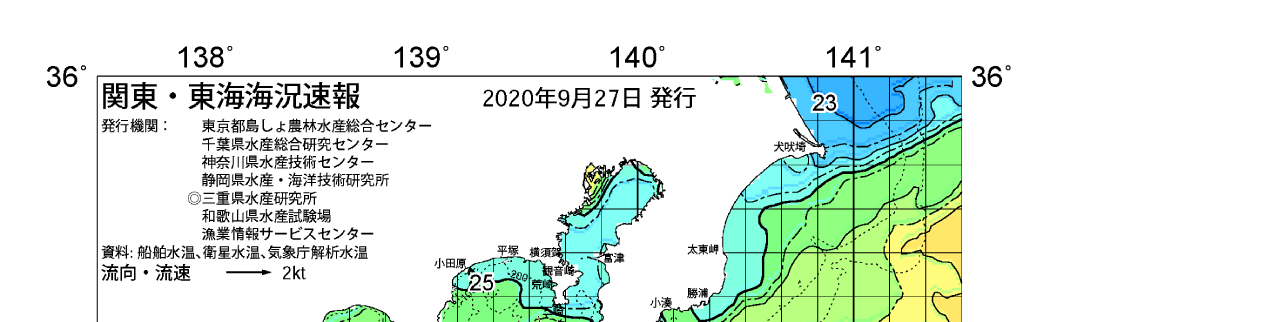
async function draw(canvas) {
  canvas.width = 1263;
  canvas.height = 322;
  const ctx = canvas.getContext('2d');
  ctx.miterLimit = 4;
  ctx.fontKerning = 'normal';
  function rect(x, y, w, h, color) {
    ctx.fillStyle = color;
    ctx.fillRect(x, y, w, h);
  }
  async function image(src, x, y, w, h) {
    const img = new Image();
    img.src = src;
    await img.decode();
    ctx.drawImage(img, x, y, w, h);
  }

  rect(0, 0, 1263, 322, '#fff');
  await image('assets/img1.png', 47, 46, 964, 276);
}

draw(document.querySelector('canvas'));
